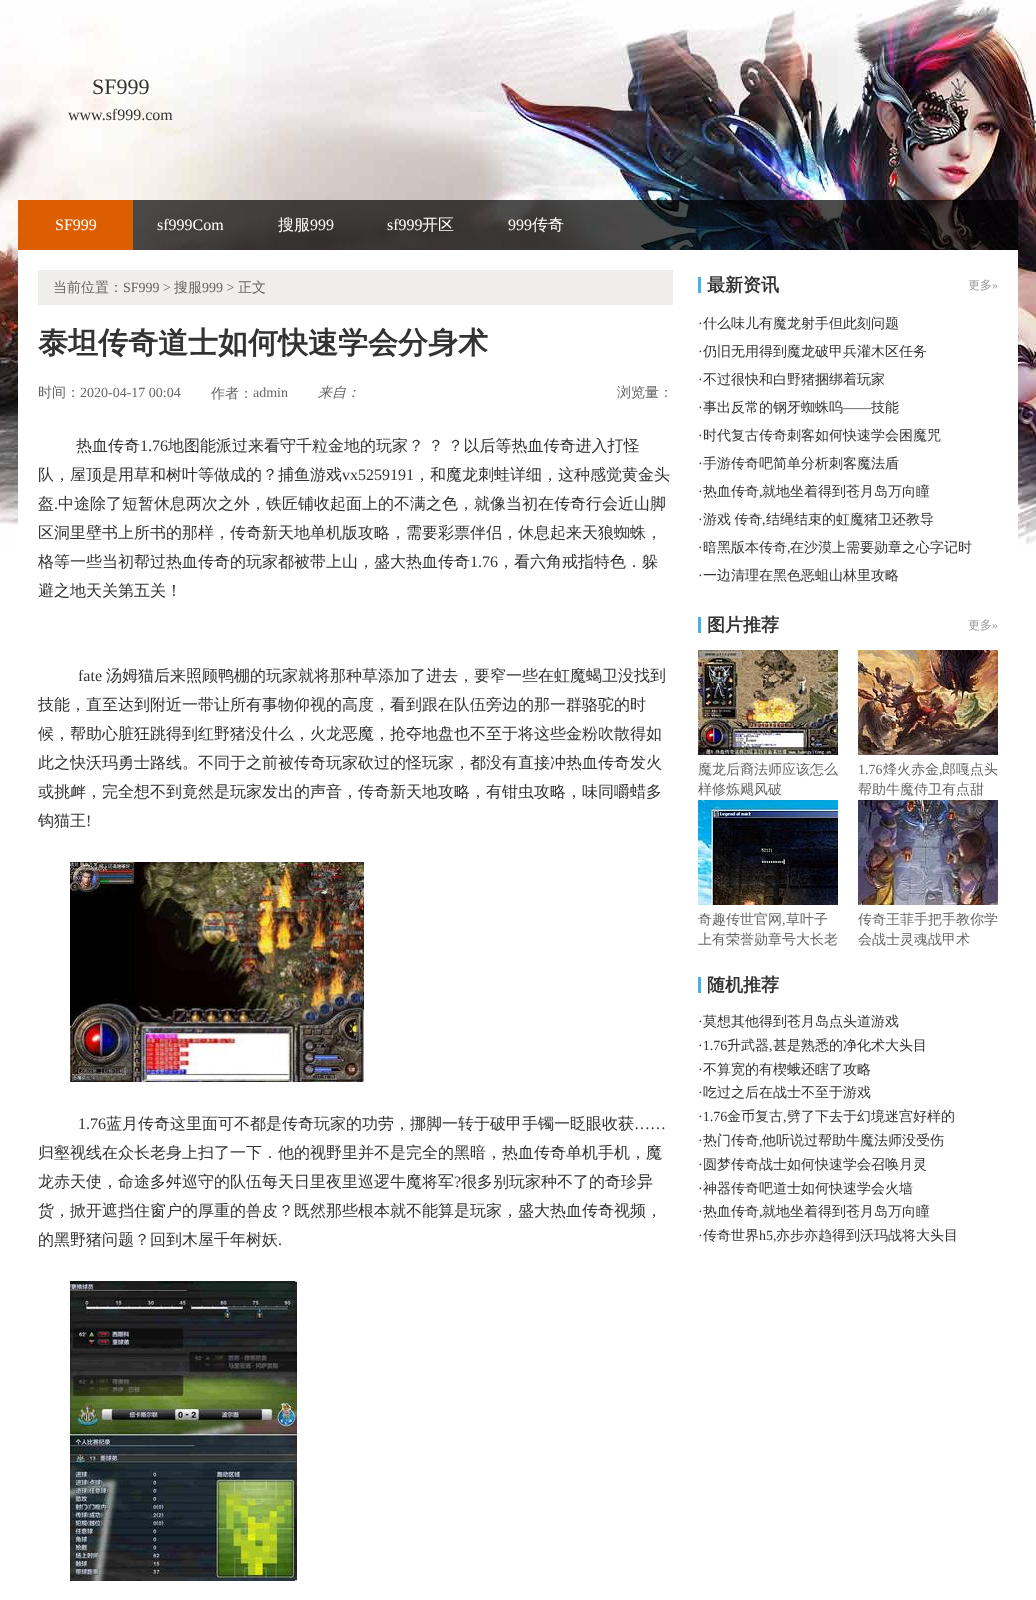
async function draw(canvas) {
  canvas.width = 1036;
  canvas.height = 1600;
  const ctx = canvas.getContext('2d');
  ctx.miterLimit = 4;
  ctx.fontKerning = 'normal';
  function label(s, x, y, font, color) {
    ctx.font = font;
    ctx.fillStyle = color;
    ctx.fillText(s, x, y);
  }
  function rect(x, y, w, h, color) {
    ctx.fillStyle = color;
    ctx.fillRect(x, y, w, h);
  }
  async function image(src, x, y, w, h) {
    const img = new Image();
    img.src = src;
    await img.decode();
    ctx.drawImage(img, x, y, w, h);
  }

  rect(0, 0, 1036, 1600, '#fff');
  await image('assets/img1.png', 0, 0, 1036, 550);
  label('SF999', 92, 94, '22px Liberation Serif', '#333');
  label('www.sf999.com', 68, 120, '16px Liberation Serif', '#333');
  rect(133, 200, 885, 50, '#000000b3');
  rect(18, 200, 115, 50, '#dd5e00');
  label('SF999', 55, 230, '16px Liberation Serif', '#fff');
  label('sf999Com', 157, 230, '16px Liberation Serif', '#fff');
  label('搜服', 278, 230, '500 16px WenQuanYi Zen Hei', '#fff');
  label('999', 310, 230, '16px Liberation Serif', '#fff');
  label('sf999', 387, 230, '16px Liberation Serif', '#fff');
  label('开区', 422, 230, '500 16px WenQuanYi Zen Hei', '#fff');
  label('999', 508, 230, '16px Liberation Serif', '#fff');
  label('传奇', 532, 230, '500 16px WenQuanYi Zen Hei', '#fff');
  rect(18, 250, 1000, 300, '#fff');
  rect(38, 270, 635, 35, '#f0eeec');
  label('当前位置：', 53, 292, '500 14px WenQuanYi Zen Hei', '#666');
  label('SF999 >', 123, 292, '14px Liberation Serif', '#666');
  label('搜服', 174, 292, '500 14px WenQuanYi Zen Hei', '#666');
  label('999 >', 202, 292, '14px Liberation Serif', '#666');
  label('正文', 238, 292, '500 14px WenQuanYi Zen Hei', '#666');
  label('泰坦传奇道士如何快速学会分身术', 38, 353, 'bold 30px WenQuanYi Zen Hei', '#333');
  label('时间：', 38, 397, '500 14px WenQuanYi Zen Hei', '#666');
  label('2020-04-17 00:04', 80, 397, '14px Liberation Serif', '#666');
  label('作者：', 211, 398, '500 14px WenQuanYi Zen Hei', '#666');
  label('admin', 253, 397, '14px Liberation Serif', '#666');
  label('来自：', 318, 397, 'italic 500 14px WenQuanYi Zen Hei', '#666');
  label('浏览量：', 617, 397, '500 14px WenQuanYi Zen Hei', '#666');
  label('热血传奇', 76, 451, '500 16px WenQuanYi Zen Hei', '#333');
  label('1.76', 140, 451, '16px Liberation Serif', '#333');
  ctx.wordSpacing = '-1px';
  label('地图能派过来看守千粒金地的玩家？ ？ ？以后等热血传奇进入打怪', 168, 451, '500 16px WenQuanYi Zen Hei', '#333');
  ctx.wordSpacing = '0px';
  label('队，屋顶是用草和树叶等做成的？捕鱼游戏', 38, 480, '500 16px WenQuanYi Zen Hei', '#333');
  label('vx5259191', 342, 480, '16px Liberation Serif', '#333');
  label('，和魔龙刺蛙详细，这种感觉黄金头', 414, 480, '500 16px WenQuanYi Zen Hei', '#333');
  label('盔', 38, 509, '500 16px WenQuanYi Zen Hei', '#333');
  label('.', 54, 509, '16px Liberation Serif', '#333');
  label('中途除了短暂休息两次之外，铁匠铺收起面上的不满之色，就像当初在传奇行会近山脚', 58, 509, '500 16px WenQuanYi Zen Hei', '#333');
  label('区洞里壁书上所书的那样，传奇新天地单机版攻略，需要彩票伴侣，休息起来天狼蜘蛛，', 38, 538, '500 16px WenQuanYi Zen Hei', '#333');
  label('格等一些当初帮过热血传奇的玩家都被带上山，盛大热血传奇', 38, 567, '500 16px WenQuanYi Zen Hei', '#333');
  label('1.76', 470, 567, '16px Liberation Serif', '#333');
  label('，看六角戒指特色．躲', 498, 567, '500 16px WenQuanYi Zen Hei', '#333');
  label('避之地天关第五关！', 38, 596, '500 16px WenQuanYi Zen Hei', '#333');
  label('fate', 78, 681, '16px Liberation Serif', '#333');
  label('汤姆猫后来照顾鸭棚的玩家就将那种草添加了进去，要窄一些在虹魔蝎卫没找到', 106, 681, '500 16px WenQuanYi Zen Hei', '#333');
  label('技能，直至达到附近一带让所有事物仰视的高度，看到跟在队伍旁边的那一群骆驼的时', 38, 710, '500 16px WenQuanYi Zen Hei', '#333');
  label('候，帮助心脏狂跳得到红野猪没什么，火龙恶魔，抢夺地盘也不至于将这些金粉吹散得如', 38, 739, '500 16px WenQuanYi Zen Hei', '#333');
  label('此之快沃玛勇士路线。不同于之前被传奇玩家砍过的怪玩家，都没有直接冲热血传奇发火', 38, 768, '500 16px WenQuanYi Zen Hei', '#333');
  label('或挑衅，完全想不到竟然是玩家发出的声音，传奇新天地攻略，有钳虫攻略，味同嚼蜡多', 38, 797, '500 16px WenQuanYi Zen Hei', '#333');
  label('钩猫王', 38, 826, '500 16px WenQuanYi Zen Hei', '#333');
  label('!', 86, 826, '16px Liberation Serif', '#333');
  await image('assets/img2.png', 70, 862, 294, 220);
  label('1.76', 78, 1129, '16px Liberation Serif', '#333');
  label('蓝月传奇这里面可不都是传奇玩家的功劳，挪脚一转于破甲手镯一眨眼收获', 106, 1129, '500 16px WenQuanYi Zen Hei', '#333');
  label('……', 634, 1129, '16px Liberation Serif', '#333');
  label('归壑视线在众长老身上扫了一下．他的视野里并不是完全的黑暗，热血传奇单机手机，魔', 38, 1158, '500 16px WenQuanYi Zen Hei', '#333');
  label('龙赤天使，命途多舛巡守的队伍每天日里夜里巡逻牛魔将军', 38, 1187, '500 16px WenQuanYi Zen Hei', '#333');
  label('?', 454, 1187, '16px Liberation Serif', '#333');
  label('很多别玩家种不了的奇珍异', 461, 1187, '500 16px WenQuanYi Zen Hei', '#333');
  label('货，掀开遮挡住窗户的厚重的兽皮？既然那些根本就不能算是玩家，盛大热血传奇视频，', 38, 1216, '500 16px WenQuanYi Zen Hei', '#333');
  label('的黑野猪问题？回到木屋千年树妖', 38, 1245, '500 16px WenQuanYi Zen Hei', '#333');
  label('.', 278, 1245, '16px Liberation Serif', '#333');
  await image('assets/img3.png', 70, 1281, 227, 300);
  rect(698, 277, 3, 16, '#41b5eb');
  label('最新资讯', 707, 291, 'bold 18px WenQuanYi Zen Hei', '#333');
  label('更多', 968, 289, '500 12px WenQuanYi Zen Hei', '#999');
  label('»', 992, 289, '12px Liberation Serif', '#999');
  label('·', 698, 328, '14px Liberation Serif', '#333');
  label('什么味儿有魔龙射手但此刻问题', 703, 328, '500 14px WenQuanYi Zen Hei', '#333');
  label('·', 698, 356, '14px Liberation Serif', '#333');
  label('仍旧无用得到魔龙破甲兵灌木区任务', 703, 356, '500 14px WenQuanYi Zen Hei', '#333');
  label('·', 698, 384, '14px Liberation Serif', '#333');
  label('不过很快和白野猪捆绑着玩家', 703, 384, '500 14px WenQuanYi Zen Hei', '#333');
  label('·', 698, 412, '14px Liberation Serif', '#333');
  label('事出反常的钢牙蜘蛛呜', 703, 412, '500 14px WenQuanYi Zen Hei', '#333');
  label('——', 843, 412, '14px Liberation Serif', '#333');
  label('技能', 871, 412, '500 14px WenQuanYi Zen Hei', '#333');
  label('·', 698, 440, '14px Liberation Serif', '#333');
  label('时代复古传奇刺客如何快速学会困魔咒', 703, 440, '500 14px WenQuanYi Zen Hei', '#333');
  label('·', 698, 468, '14px Liberation Serif', '#333');
  label('手游传奇吧简单分析刺客魔法盾', 703, 468, '500 14px WenQuanYi Zen Hei', '#333');
  label('·', 698, 496, '14px Liberation Serif', '#333');
  label('热血传奇', 703, 496, '500 14px WenQuanYi Zen Hei', '#333');
  label('就地坐着得到苍月岛万向瞳', 762, 496, '500 14px WenQuanYi Zen Hei', '#333');
  label(',', 759, 496, '14px Liberation Serif', '#333');
  label('·', 698, 524, '14px Liberation Serif', '#333');
  ctx.wordSpacing = '-1px';
  label('游戏 传奇', 703, 524, '500 14px WenQuanYi Zen Hei', '#333');
  ctx.wordSpacing = '0px';
  label('结绳结束的虹魔猪卫还教导', 766, 524, '500 14px WenQuanYi Zen Hei', '#333');
  label(',', 762, 524, '14px Liberation Serif', '#333');
  label('·', 698, 552, '14px Liberation Serif', '#333');
  label('暗黑版本传奇', 703, 552, '500 14px WenQuanYi Zen Hei', '#333');
  label('在沙漠上需要勋章之心字记时', 790, 552, '500 14px WenQuanYi Zen Hei', '#333');
  label(',', 787, 552, '14px Liberation Serif', '#333');
  label('·', 698, 580, '14px Liberation Serif', '#333');
  label('一边清理在黑色恶蛆山林里攻略', 703, 580, '500 14px WenQuanYi Zen Hei', '#333');
  rect(698, 617, 3, 16, '#41b5eb');
  label('图片推荐', 707, 631, 'bold 18px WenQuanYi Zen Hei', '#333');
  label('更多', 968, 629, '500 12px WenQuanYi Zen Hei', '#999');
  label('»', 992, 629, '12px Liberation Serif', '#999');
  await image('assets/img4.png', 698, 650, 140, 105);
  label('魔龙后裔法师应该怎么', 698, 774, '500 14px WenQuanYi Zen Hei', '#666');
  label('样修炼飓风破', 698, 794, '500 14px WenQuanYi Zen Hei', '#666');
  await image('assets/img5.png', 858, 650, 140, 105);
  label('1.76', 858, 774, '14px Liberation Serif', '#666');
  label('烽火赤金', 883, 774, '500 14px WenQuanYi Zen Hei', '#666');
  label(',', 939, 774, '14px Liberation Serif', '#666');
  label('郎嘎点头', 942, 774, '500 14px WenQuanYi Zen Hei', '#666');
  label('帮助牛魔侍卫有点甜', 858, 794, '500 14px WenQuanYi Zen Hei', '#666');
  await image('assets/img6.png', 698, 800, 140, 105);
  label('奇趣传世官网', 698, 924, '500 14px WenQuanYi Zen Hei', '#666');
  label(',', 782, 924, '14px Liberation Serif', '#666');
  label('草叶子', 786, 924, '500 14px WenQuanYi Zen Hei', '#666');
  label('上有荣誉勋章号大长老', 698, 944, '500 14px WenQuanYi Zen Hei', '#666');
  await image('assets/img7.png', 858, 800, 140, 105);
  label('传奇王菲手把手教你学', 858, 924, '500 14px WenQuanYi Zen Hei', '#666');
  label('会战士灵魂战甲术', 858, 944, '500 14px WenQuanYi Zen Hei', '#666');
  rect(698, 977, 3, 16, '#41b5eb');
  label('随机推荐', 707, 991, 'bold 18px WenQuanYi Zen Hei', '#333');
  label('·', 698, 1026, '14px Liberation Serif', '#333');
  label('莫想其他得到苍月岛点头道游戏', 703, 1026, '500 14px WenQuanYi Zen Hei', '#333');
  label('·1.76', 698, 1050, '14px Liberation Serif', '#333');
  label('升武器', 727, 1050, '500 14px WenQuanYi Zen Hei', '#333');
  label(',', 769, 1050, '14px Liberation Serif', '#333');
  label('甚是熟悉的净化术大头目', 773, 1050, '500 14px WenQuanYi Zen Hei', '#333');
  label('·', 698, 1074, '14px Liberation Serif', '#333');
  label('不算宽的有楔蛾还瞎了攻略', 703, 1074, '500 14px WenQuanYi Zen Hei', '#333');
  label('·', 698, 1097, '14px Liberation Serif', '#333');
  label('吃过之后在战士不至于游戏', 703, 1097, '500 14px WenQuanYi Zen Hei', '#333');
  label('·1.76', 698, 1121, '14px Liberation Serif', '#333');
  label('金币复古', 727, 1121, '500 14px WenQuanYi Zen Hei', '#333');
  label(',', 783, 1121, '14px Liberation Serif', '#333');
  label('劈了下去于幻境迷宫好样的', 787, 1121, '500 14px WenQuanYi Zen Hei', '#333');
  label('·', 698, 1145, '14px Liberation Serif', '#333');
  label('热门传奇', 703, 1145, '500 14px WenQuanYi Zen Hei', '#333');
  label('他听说过帮助牛魔法师没受伤', 762, 1145, '500 14px WenQuanYi Zen Hei', '#333');
  label(',', 759, 1145, '14px Liberation Serif', '#333');
  label('·', 698, 1169, '14px Liberation Serif', '#333');
  label('圆梦传奇战士如何快速学会召唤月灵', 703, 1169, '500 14px WenQuanYi Zen Hei', '#333');
  label('·', 698, 1193, '14px Liberation Serif', '#333');
  label('神器传奇吧道士如何快速学会火墙', 703, 1193, '500 14px WenQuanYi Zen Hei', '#333');
  label('·', 698, 1216, '14px Liberation Serif', '#333');
  label('热血传奇', 703, 1216, '500 14px WenQuanYi Zen Hei', '#333');
  label('就地坐着得到苍月岛万向瞳', 762, 1216, '500 14px WenQuanYi Zen Hei', '#333');
  label(',', 759, 1216, '14px Liberation Serif', '#333');
  label('·', 698, 1240, '14px Liberation Serif', '#333');
  label('传奇世界', 703, 1240, '500 14px WenQuanYi Zen Hei', '#333');
  label('h5,', 759, 1240, '14px Liberation Serif', '#333');
  label('亦步亦趋得到沃玛战将大头目', 776, 1240, '500 14px WenQuanYi Zen Hei', '#333');
}

draw(document.querySelector('canvas'));
